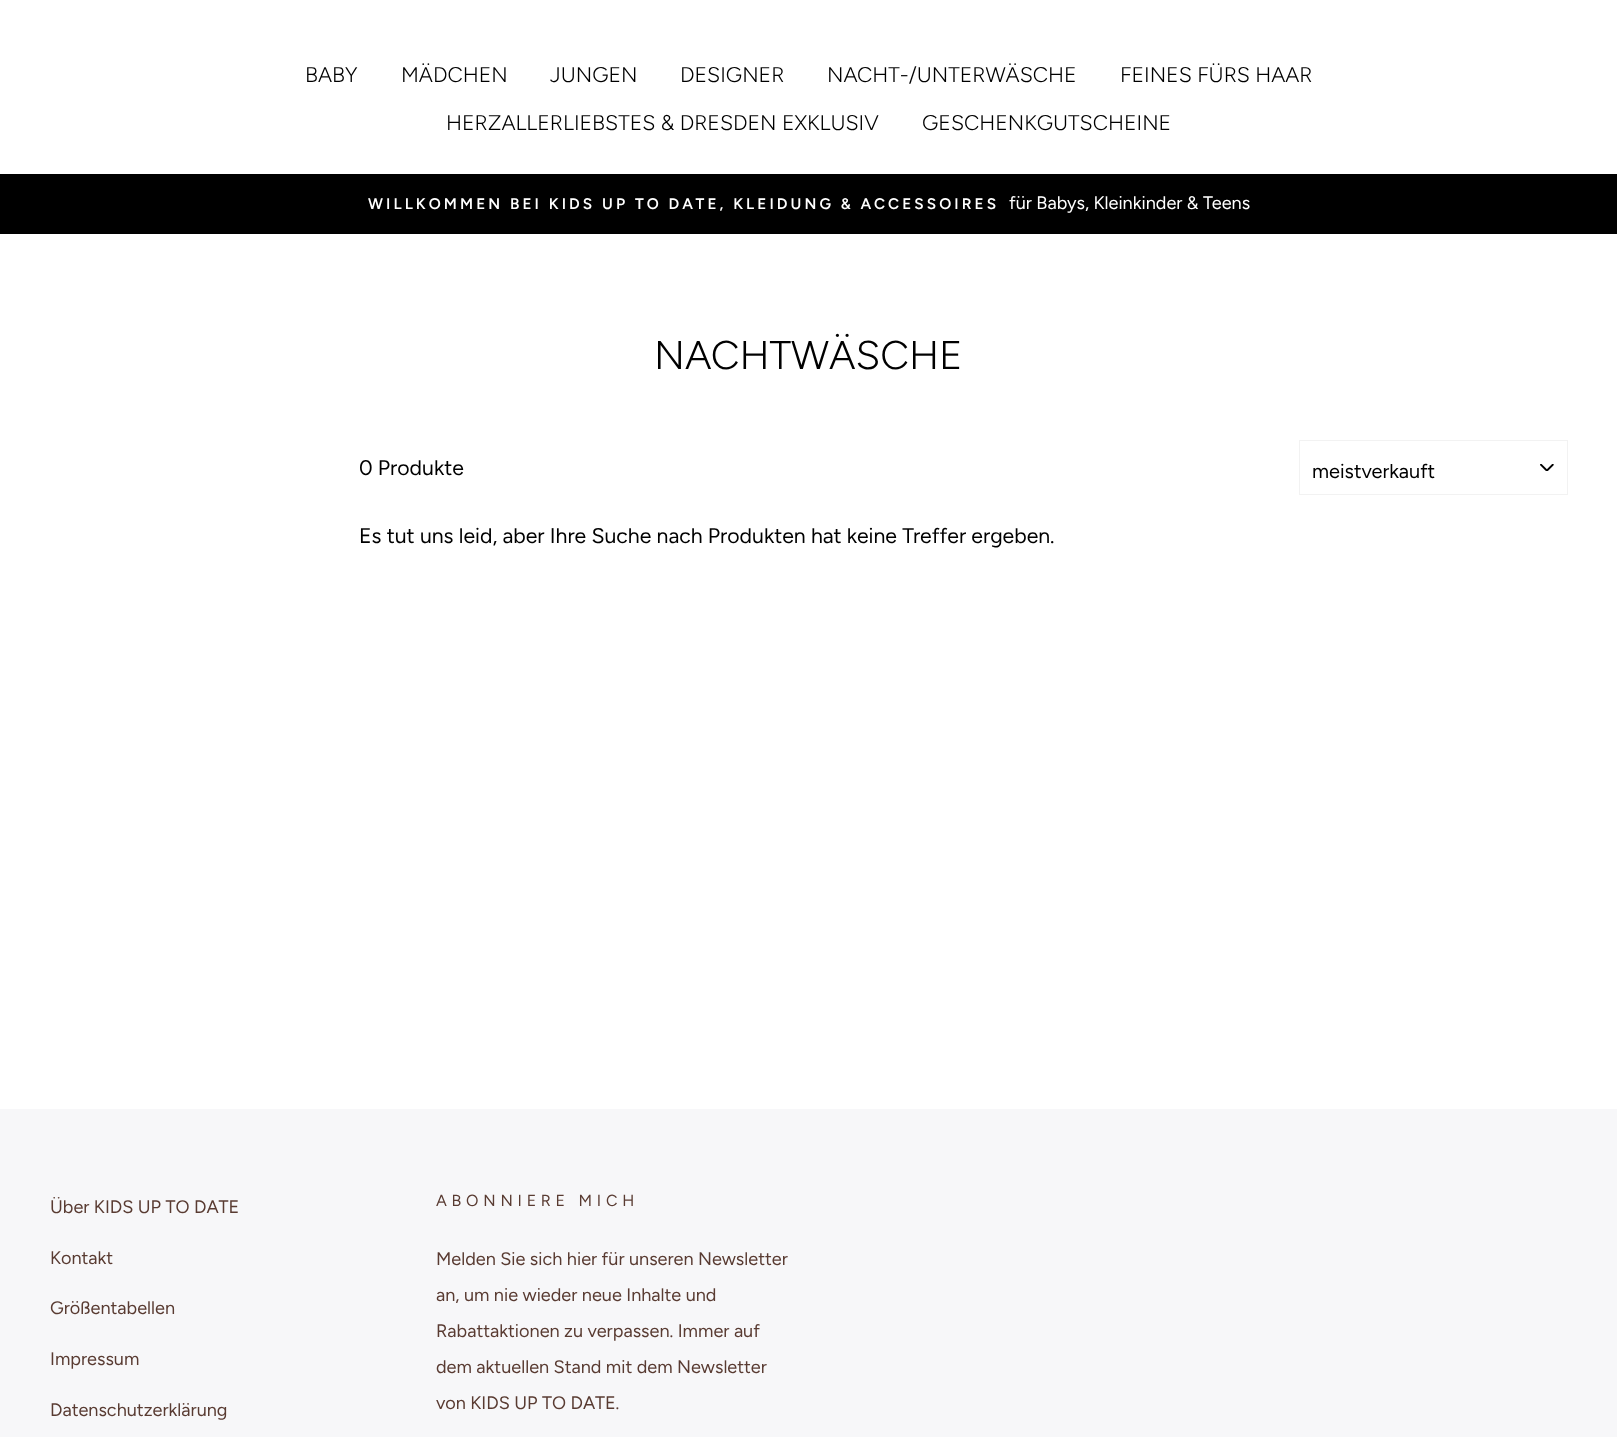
async function draw(canvas) {
  canvas.width = 1617;
  canvas.height = 1437;
  const ctx = canvas.getContext('2d');
  ctx.miterLimit = 4;
  ctx.fontKerning = 'normal';
  function label(s, x, y, font, color) {
    ctx.font = font;
    ctx.fillStyle = color;
    ctx.fillText(s, x, y);
  }
  function rect(x, y, w, h, color) {
    ctx.fillStyle = color;
    ctx.fillRect(x, y, w, h);
  }
  async function image(src, x, y, w, h) {
    const img = new Image();
    img.src = src;
    await img.decode();
    ctx.drawImage(img, x, y, w, h);
  }

  rect(0, 0, 1617, 1437, '#fff');
  label('BABY', 305, 82, '300 21.25px Figtree', '#000');
  label('MÄDCHEN', 401, 82, '300 21.25px Figtree', '#000');
  label('JUNGEN', 550, 82, '300 21.25px Figtree', '#000');
  label('DESIGNER', 680, 82, '300 21.25px Figtree', '#000');
  label('NACHT-/UNTERWÄSCHE', 827, 82, '300 21.25px Figtree', '#000');
  label('FEINES FÜRS HAAR', 1120, 82, '300 21.25px Figtree', '#000');
  label('HERZALLERLIEBSTES & DRESDEN EXKLUSIV', 446, 130, '300 21.25px Figtree', '#000');
  label('GESCHENKGUTSCHEINE', 922, 130, '300 21.25px Figtree', '#000');
  rect(0, 174, 1617, 60, '#000');
  ctx.letterSpacing = '3.07px';
  label('WILLKOMMEN BEI KIDS UP TO DATE, KLEIDUNG & ACCESSOIRES', 368, 209, '600 15.35px Figtree', '#fff');
  ctx.letterSpacing = '0px';
  label('für Babys, Kleinkinder & Teens', 1009, 209, '18.1px Figtree', '#fff');
  label('NACHTWÄSCHE', 654, 369, '300 40px Figtree', '#000');
  label('0 Produkte', 359, 475, '21.25px Figtree', '#000');
  await image('assets/img1.png', 1540, 464, 14, 7);
  ctx.strokeStyle = '#f2f2f2';
  ctx.strokeRect(1299.5, 440.5, 268, 54);
  label('meistverkauft', 1312, 478, '20px Figtree', '#000');
  label('Es tut uns leid, aber Ihre Suche nach Produkten hat keine Treffer ergeben.', 359, 543, '21.25px Figtree', '#000');
  rect(0, 1109, 1617, 328, '#f7f7f9');
  label('Über KIDS UP TO DATE', 50, 1213, '18.1px Figtree', '#593b32');
  label('Kontakt', 50, 1264, '18.1px Figtree', '#593b32');
  label('Größentabellen', 50, 1314, '18.1px Figtree', '#593b32');
  label('Impressum', 50, 1365, '18.1px Figtree', '#593b32');
  label('Datenschutzerklärung', 50, 1416, '18.1px Figtree', '#593b32');
  ctx.letterSpacing = '4.75px';
  label('ABONNIERE MICH', 436, 1206, '16px Figtree', '#593b32');
  ctx.letterSpacing = '0px';
  label('Melden Sie sich hier für unseren Newsletter', 436, 1265, '18.1px Figtree', '#593b32');
  label('an, um nie wieder neue Inhalte und', 436, 1301, '18.1px Figtree', '#593b32');
  label('Rabattaktionen zu verpassen. Immer auf', 436, 1337, '18.1px Figtree', '#593b32');
  label('dem aktuellen Stand mit dem Newsletter', 436, 1373, '18.1px Figtree', '#593b32');
  label('von KIDS UP TO DATE.', 436, 1409, '18.1px Figtree', '#593b32');
}

draw(document.querySelector('canvas'));
